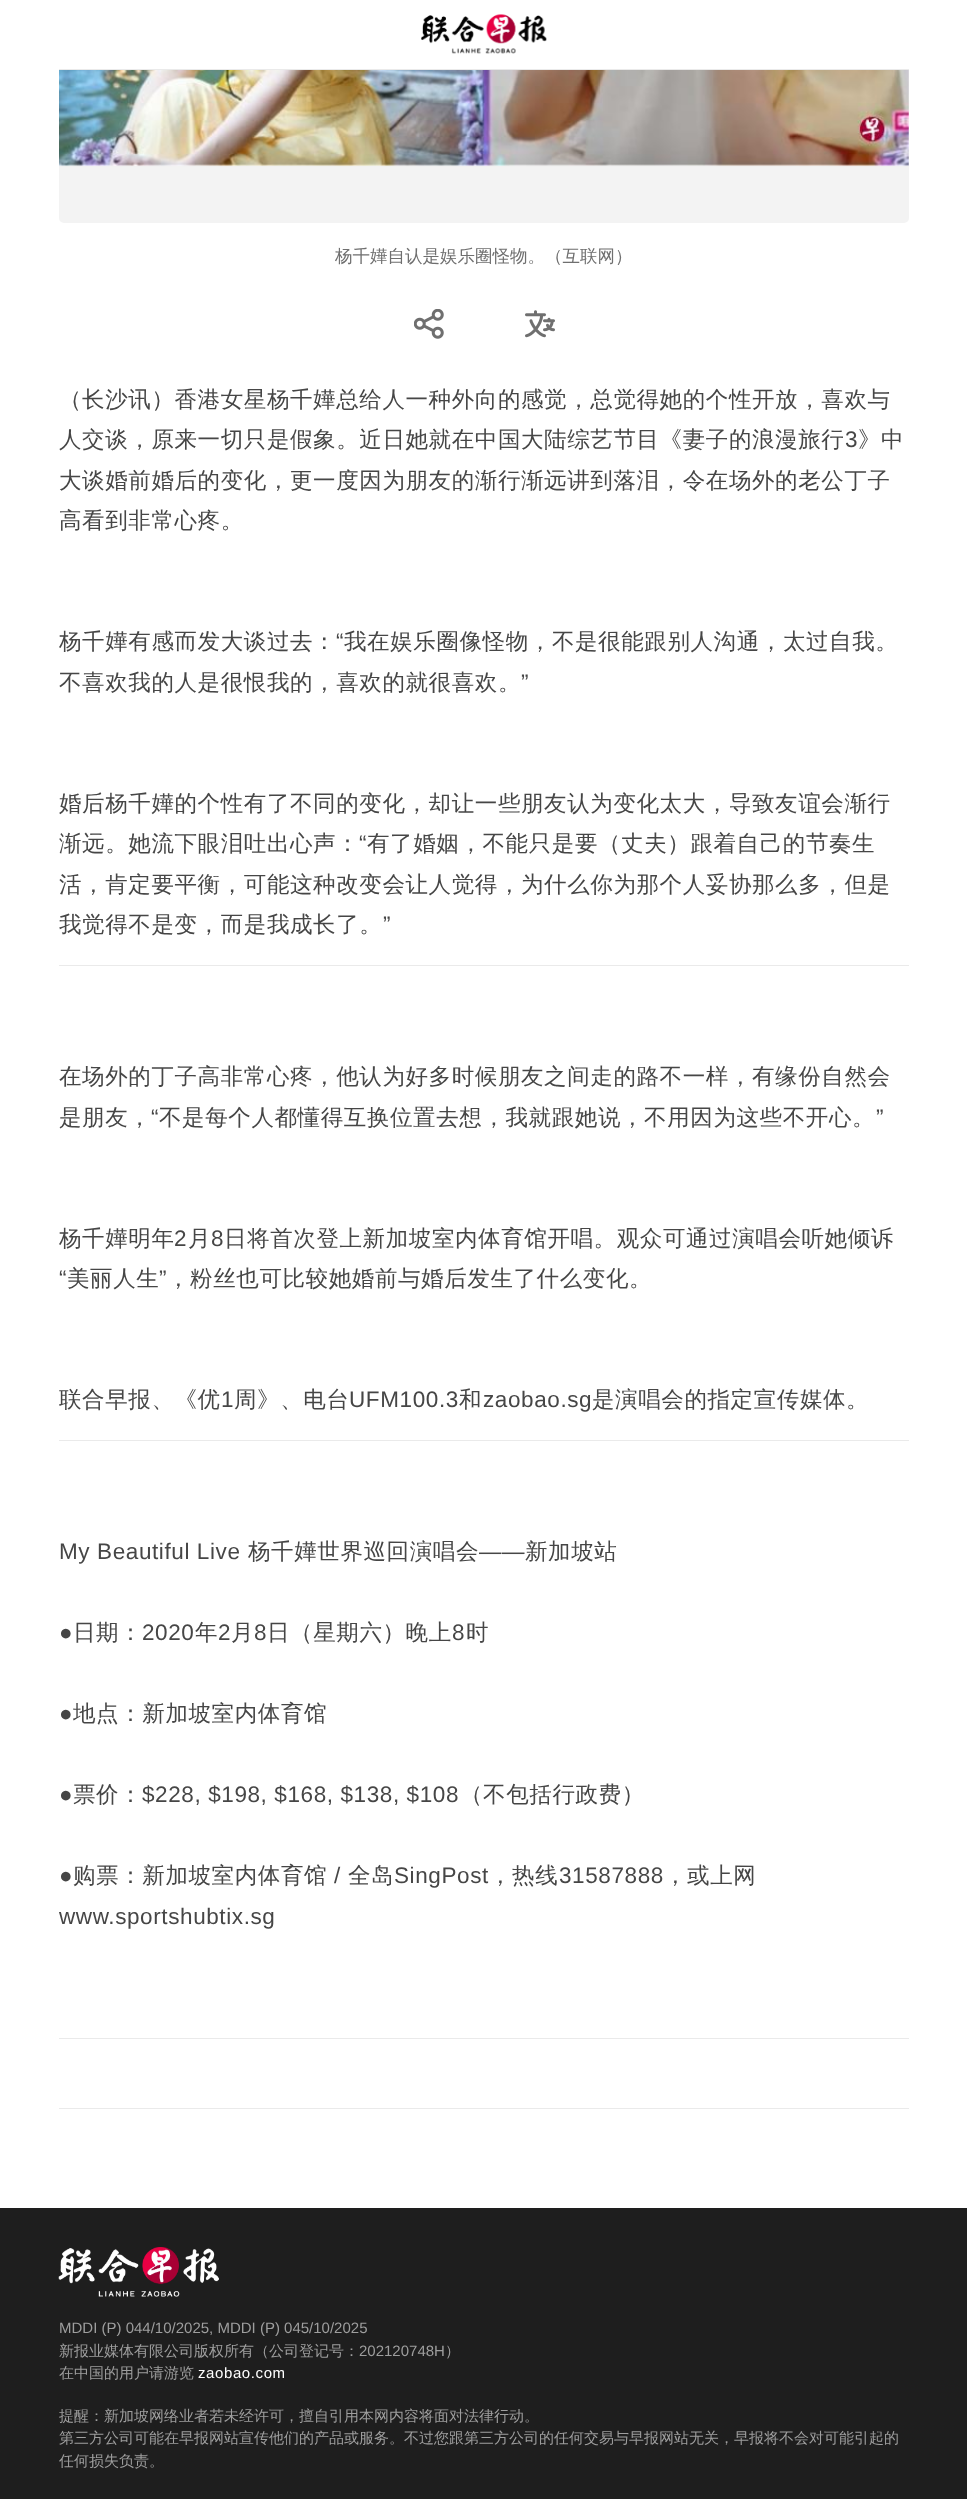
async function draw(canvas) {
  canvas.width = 967;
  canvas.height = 2499;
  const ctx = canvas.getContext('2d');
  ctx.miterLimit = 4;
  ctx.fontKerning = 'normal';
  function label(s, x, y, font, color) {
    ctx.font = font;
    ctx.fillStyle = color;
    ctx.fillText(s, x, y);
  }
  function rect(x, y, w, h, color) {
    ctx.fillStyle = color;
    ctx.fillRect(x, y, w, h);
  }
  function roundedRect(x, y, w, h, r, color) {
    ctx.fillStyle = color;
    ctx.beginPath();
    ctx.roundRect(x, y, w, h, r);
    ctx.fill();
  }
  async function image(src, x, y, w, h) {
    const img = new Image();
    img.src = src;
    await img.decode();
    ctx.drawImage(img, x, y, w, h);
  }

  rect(0, 0, 967, 2499, '#fff');
  roundedRect(59, -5, 850, 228, 5, '#f3f3f3');
  rect(59, 0, 850, 70, '#fff');
  await image('assets/img1.png', 421, 14, 126, 40);
  rect(59, 69, 850, 1, '#eaeaea');
  await image('assets/img2.png', 59, 70, 850, 97);
  label('杨千嬅自认是娱乐圈怪物。（互联网）', 335, 262, '500 17.5px WenQuanYi Zen Hei', '#6f6f6f');
  await image('assets/img3.png', 414, 309, 30, 30);
  await image('assets/img4.png', 525, 310, 30, 28);
  ctx.letterSpacing = '0.6px';
  label('（长沙讯）香港女星杨千嬅总给人一种外向的感觉，总觉得她的个性开放，喜欢与', 59, 407, '500 22.5px WenQuanYi Zen Hei', '#464646');
  label('人交谈，原来一切只是假象。近日她就在中国大陆综艺节目《妻子的浪漫旅行', 59, 447, '500 22.5px WenQuanYi Zen Hei', '#464646');
  label('3', 845, 447, '22.5px Liberation Sans', '#464646');
  label('》中', 858, 447, '500 22.5px WenQuanYi Zen Hei', '#464646');
  label('大谈婚前婚后的变化，更一度因为朋友的渐行渐远讲到落泪，令在场外的老公丁子', 59, 488, '500 22.5px WenQuanYi Zen Hei', '#464646');
  label('高看到非常心疼。', 59, 528, '500 22.5px WenQuanYi Zen Hei', '#464646');
  label('杨千嬅有感而发大谈过去：', 59, 649, '500 22.5px WenQuanYi Zen Hei', '#464646');
  label('“', 336, 649, '22.5px Liberation Sans', '#464646');
  label('我在娱乐圈像怪物，不是很能跟别人沟通，太过自我。', 344, 649, '500 22.5px WenQuanYi Zen Hei', '#464646');
  label('不喜欢我的人是很恨我的，喜欢的就很喜欢。', 59, 690, '500 22.5px WenQuanYi Zen Hei', '#464646');
  label('”', 521, 690, '22.5px Liberation Sans', '#464646');
  label('婚后杨千嬅的个性有了不同的变化，却让一些朋友认为变化太大，导致友谊会渐行', 59, 811, '500 22.5px WenQuanYi Zen Hei', '#464646');
  label('渐远。她流下眼泪吐出心声：', 59, 851, '500 22.5px WenQuanYi Zen Hei', '#464646');
  label('“', 359, 851, '22.5px Liberation Sans', '#464646');
  label('有了婚姻，不能只是要（丈夫）跟着自己的节奏生', 367, 851, '500 22.5px WenQuanYi Zen Hei', '#464646');
  label('活，肯定要平衡，可能这种改变会让人觉得，为什么你为那个人妥协那么多，但是', 59, 892, '500 22.5px WenQuanYi Zen Hei', '#464646');
  label('我觉得不是变，而是我成长了。', 59, 932, '500 22.5px WenQuanYi Zen Hei', '#464646');
  label('”', 383, 932, '22.5px Liberation Sans', '#464646');
  rect(59, 965, 850, 1, '#eaeaea');
  label('在场外的丁子高非常心疼，他认为好多时候朋友之间走的路不一样，有缘份自然会', 59, 1084, '500 22.5px WenQuanYi Zen Hei', '#464646');
  label('是朋友，', 59, 1125, '500 22.5px WenQuanYi Zen Hei', '#464646');
  label('“', 151, 1125, '22.5px Liberation Sans', '#464646');
  label('不是每个人都懂得互换位置去想，我就跟她说，不用因为这些不开心。', 159, 1125, '500 22.5px WenQuanYi Zen Hei', '#464646');
  label('”', 876, 1125, '22.5px Liberation Sans', '#464646');
  label('杨千嬅明年', 59, 1246, '500 22.5px WenQuanYi Zen Hei', '#464646');
  label('2', 174, 1246, '22.5px Liberation Sans', '#464646');
  label('月', 188, 1246, '500 22.5px WenQuanYi Zen Hei', '#464646');
  label('8', 211, 1246, '22.5px Liberation Sans', '#464646');
  label('日将首次登上新加坡室内体育馆开唱。观众可通过演唱会听她倾诉', 224, 1246, '500 22.5px WenQuanYi Zen Hei', '#464646');
  label('“', 59, 1286, '22.5px Liberation Sans', '#464646');
  label('美丽人生', 67, 1286, '500 22.5px WenQuanYi Zen Hei', '#464646');
  label('”', 159, 1286, '22.5px Liberation Sans', '#464646');
  label('，粉丝也可比较她婚前与婚后发生了什么变化。', 167, 1286, '500 22.5px WenQuanYi Zen Hei', '#464646');
  label('联合早报、《优', 59, 1407, '500 22.5px WenQuanYi Zen Hei', '#464646');
  label('1', 221, 1407, '22.5px Liberation Sans', '#464646');
  label('周》、电台', 234, 1407, '500 22.5px WenQuanYi Zen Hei', '#464646');
  label('UFM100.3', 349, 1407, '22.5px Liberation Sans', '#464646');
  label('和', 459, 1407, '500 22.5px WenQuanYi Zen Hei', '#464646');
  label('zaobao.sg', 483, 1407, '22.5px Liberation Sans', '#464646');
  label('是演唱会的指定宣传媒体。', 592, 1407, '500 22.5px WenQuanYi Zen Hei', '#464646');
  rect(59, 1440, 850, 1, '#eaeaea');
  label('My Beautiful Live', 59, 1559, '22.5px Liberation Sans', '#464646');
  label('杨千嬅世界巡回演唱会', 248, 1559, '500 22.5px WenQuanYi Zen Hei', '#464646');
  label('——', 479, 1559, '22.5px Liberation Sans', '#464646');
  label('新加坡站', 525, 1559, '500 22.5px WenQuanYi Zen Hei', '#464646');
  label('●', 59, 1640, '22.5px Liberation Sans', '#464646');
  label('日期：', 73, 1640, '500 22.5px WenQuanYi Zen Hei', '#464646');
  label('2020', 142, 1640, '22.5px Liberation Sans', '#464646');
  label('年', 195, 1640, '500 22.5px WenQuanYi Zen Hei', '#464646');
  label('2', 218, 1640, '22.5px Liberation Sans', '#464646');
  label('月', 231, 1640, '500 22.5px WenQuanYi Zen Hei', '#464646');
  label('8', 254, 1640, '22.5px Liberation Sans', '#464646');
  label('日（星期六）晚上', 267, 1640, '500 22.5px WenQuanYi Zen Hei', '#464646');
  label('8', 452, 1640, '22.5px Liberation Sans', '#464646');
  label('时', 466, 1640, '500 22.5px WenQuanYi Zen Hei', '#464646');
  label('●', 59, 1721, '22.5px Liberation Sans', '#464646');
  label('地点：新加坡室内体育馆', 73, 1721, '500 22.5px WenQuanYi Zen Hei', '#464646');
  label('●', 59, 1802, '22.5px Liberation Sans', '#464646');
  label('票价：', 73, 1802, '500 22.5px WenQuanYi Zen Hei', '#464646');
  label('$228, $198, $168, $138, $108', 142, 1802, '22.5px Liberation Sans', '#464646');
  label('（不包括行政费）', 460, 1802, '500 22.5px WenQuanYi Zen Hei', '#464646');
  label('●', 59, 1883, '22.5px Liberation Sans', '#464646');
  label('购票：新加坡室内体育馆', 73, 1883, '500 22.5px WenQuanYi Zen Hei', '#464646');
  label('/', 334, 1883, '22.5px Liberation Sans', '#464646');
  label('全岛', 348, 1883, '500 22.5px WenQuanYi Zen Hei', '#464646');
  label('SingPost', 394, 1883, '22.5px Liberation Sans', '#464646');
  label('，热线', 489, 1883, '500 22.5px WenQuanYi Zen Hei', '#464646');
  label('31587888', 559, 1883, '22.5px Liberation Sans', '#464646');
  label('，或上网', 664, 1883, '500 22.5px WenQuanYi Zen Hei', '#464646');
  label('www.sportshubtix.sg', 59, 1924, '22.5px Liberation Sans', '#464646');
  rect(59, 2038, 850, 1, '#eaeaea');
  rect(59, 2108, 850, 1, '#eaeaea');
  rect(0, 2208, 967, 291, '#1e1e1e');
  await image('assets/img5.png', 58, 2247, 161, 50);
  ctx.letterSpacing = '0px';
  label('MDDI (P) 044/10/2025, MDDI (P) 045/10/2025', 59, 2333, '15px Liberation Sans', '#9e9e9e');
  label('新报业媒体有限公司版权所有（公司登记号：', 59, 2356, '500 15px WenQuanYi Zen Hei', '#9e9e9e');
  label('202120748H', 359, 2356, '15px Liberation Sans', '#9e9e9e');
  label('）', 445, 2356, '500 15px WenQuanYi Zen Hei', '#9e9e9e');
  label('在中国的用户请游览', 59, 2378, '500 15px WenQuanYi Zen Hei', '#9e9e9e');
  ctx.letterSpacing = '0.6px';
  label('zaobao.com', 198, 2378, '15px Liberation Sans', '#fff');
  ctx.letterSpacing = '0px';
  label('提醒：新加坡网络业者若未经许可，擅自引用本网内容将面对法律行动。', 59, 2421, '500 15px WenQuanYi Zen Hei', '#9e9e9e');
  label('第三方公司可能在早报网站宣传他们的产品或服务。不过您跟第三方公司的任何交易与早报网站无关，早报将不会对可能引起的', 59, 2443, '500 15px WenQuanYi Zen Hei', '#9e9e9e');
  label('任何损失负责。', 59, 2466, '500 15px WenQuanYi Zen Hei', '#9e9e9e');
}

draw(document.querySelector('canvas'));
